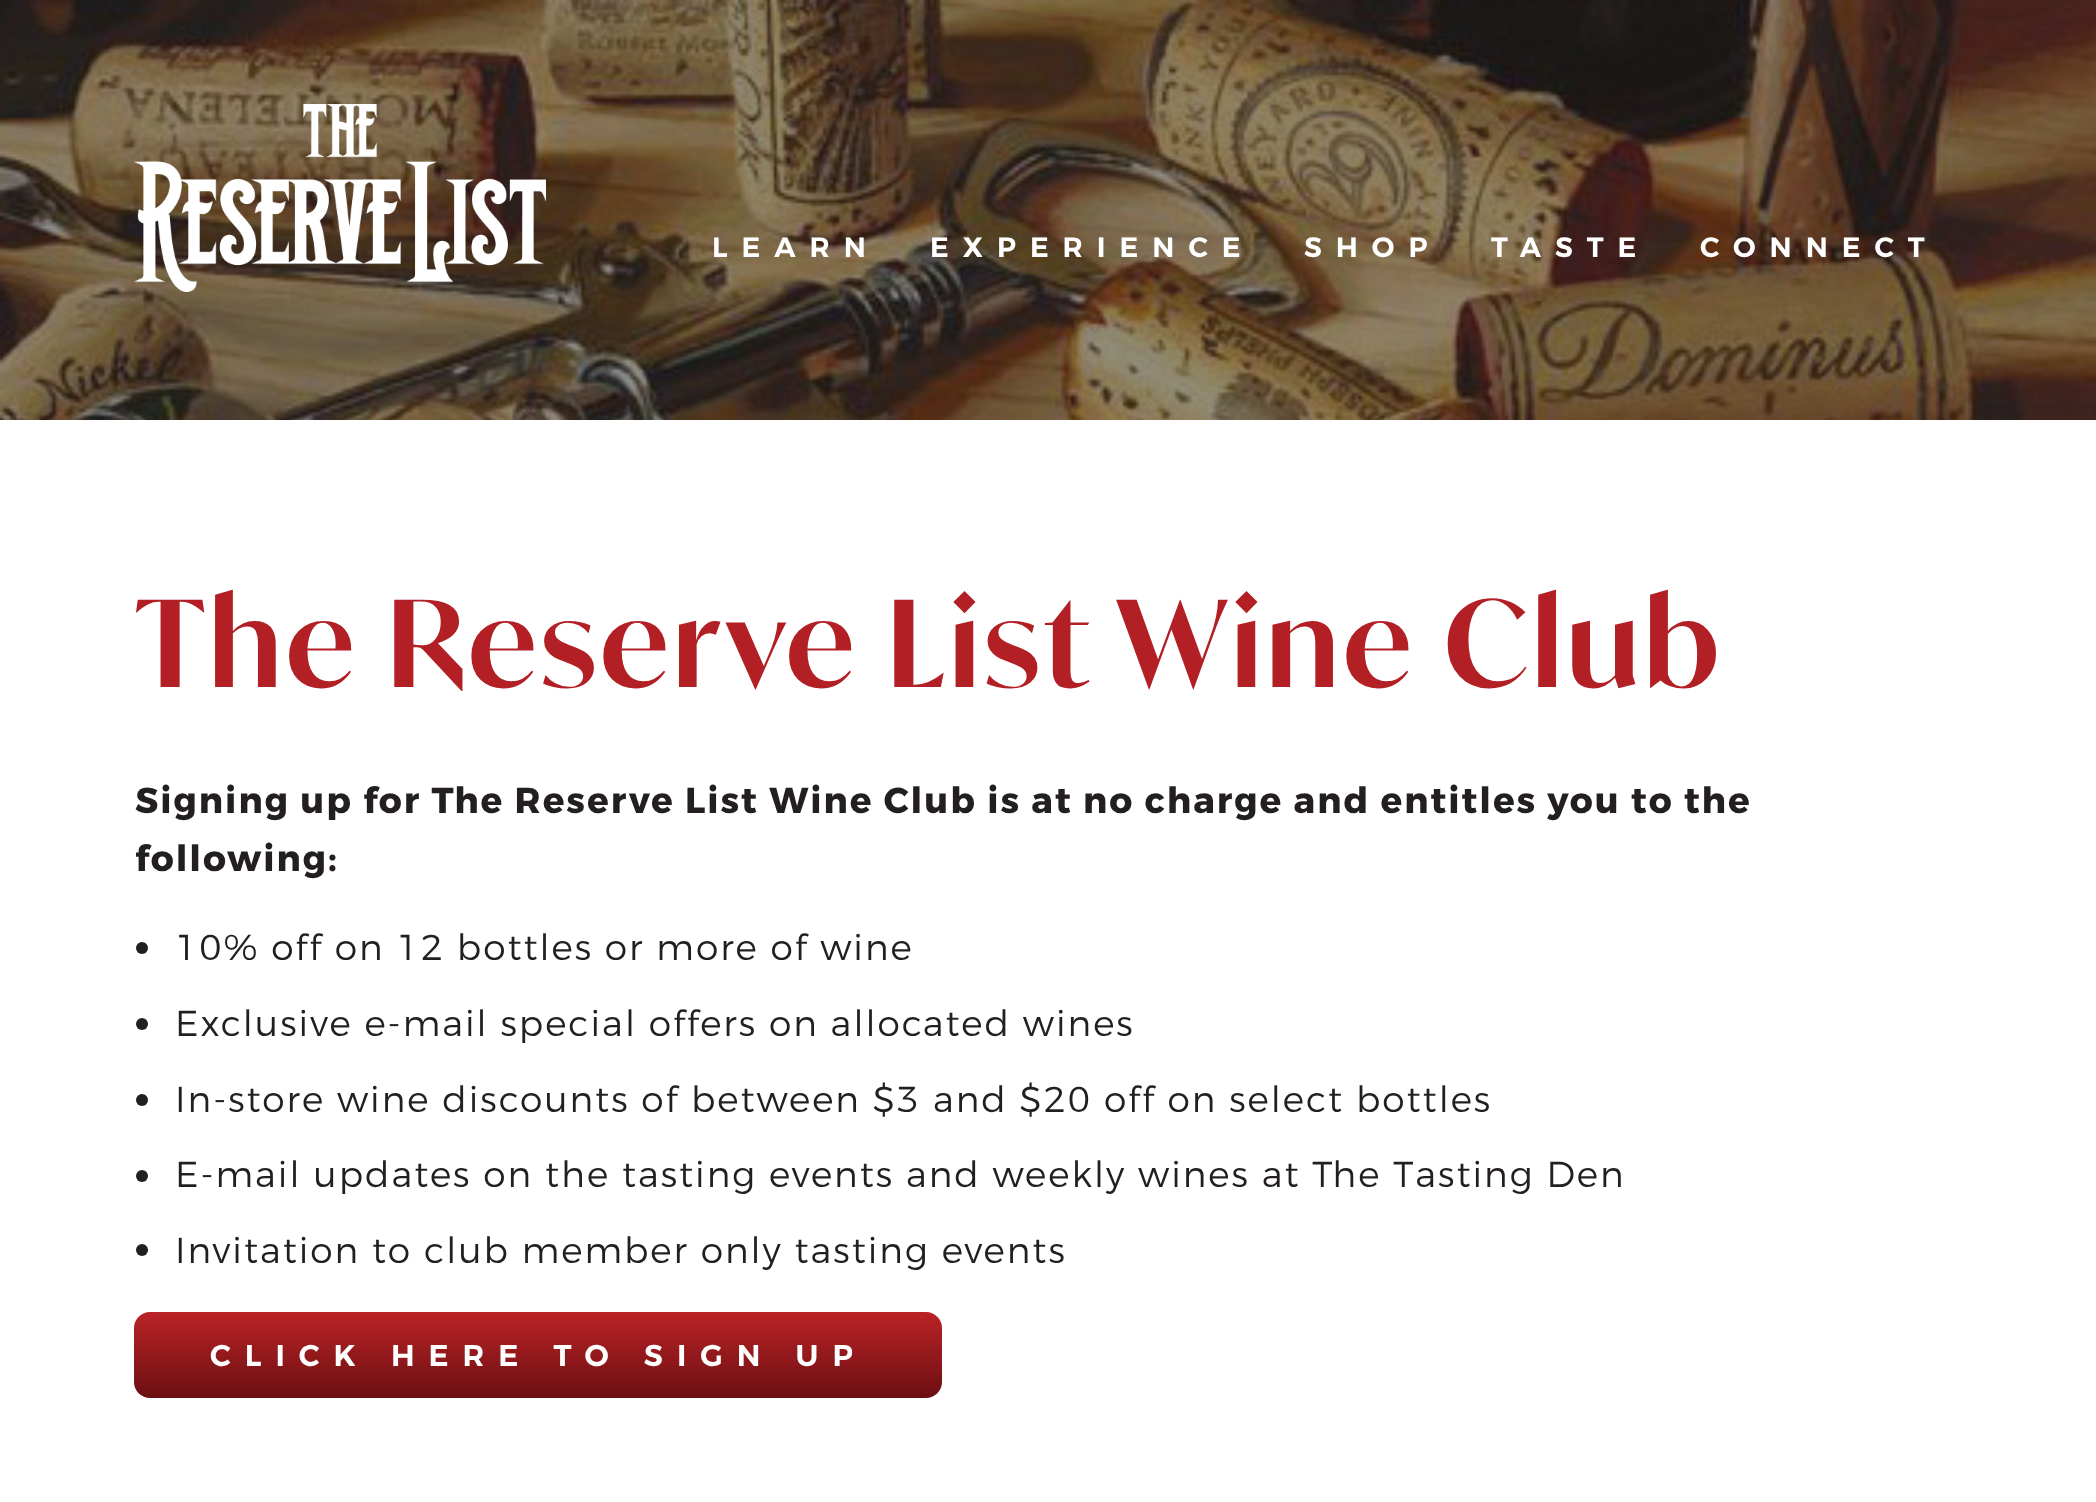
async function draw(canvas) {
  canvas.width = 2096;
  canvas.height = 1502;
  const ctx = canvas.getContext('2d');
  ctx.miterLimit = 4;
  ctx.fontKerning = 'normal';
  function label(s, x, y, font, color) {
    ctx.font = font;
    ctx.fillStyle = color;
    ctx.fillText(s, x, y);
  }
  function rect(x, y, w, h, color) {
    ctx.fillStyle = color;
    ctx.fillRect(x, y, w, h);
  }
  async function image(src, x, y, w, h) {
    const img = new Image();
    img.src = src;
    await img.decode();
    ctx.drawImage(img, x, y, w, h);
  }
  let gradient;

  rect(0, 0, 2096, 1502, '#fff');
  await image('assets/img1.png', 0, 0, 2096, 420);
  await image('assets/img2.png', 134, 104, 412, 188);
  ctx.letterSpacing = '14px';
  label('LEARN', 712, 257, '600 28px Montserrat', '#fff');
  label('EXPERIENCE', 930, 257, '600 28px Montserrat', '#fff');
  label('SHOP', 1304, 257, '600 28px Montserrat', '#fff');
  label('TASTE', 1491, 257, '600 28px Montserrat', '#fff');
  label('CONNECT', 1700, 257, '600 28px Montserrat', '#fff');
  ctx.letterSpacing = '4px';
  label('The Reserve List Wine Club', 135, 687, '600 120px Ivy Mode', '#b21f24');
  ctx.letterSpacing = '2px';
  label('Signing up for The Reserve List Wine Club is at no charge and entitles you to the', 135, 813, 'bold 36px Montserrat', '#231f20');
  label('following:', 135, 871, 'bold 36px Montserrat', '#231f20');
  ctx.beginPath();
  ctx.arc(142, 948, 6, 0, 2 * Math.PI);
  ctx.fill();
  label('10% off on 12 bottles or more of wine', 175, 960, '300 36px Montserrat', '#231f20');
  ctx.beginPath();
  ctx.arc(142, 1024, 6, 0, 2 * Math.PI);
  ctx.fill();
  label('Exclusive e-mail special offers on allocated wines', 175, 1036, '300 36px Montserrat', '#231f20');
  ctx.beginPath();
  ctx.arc(142, 1100, 6, 0, 2 * Math.PI);
  ctx.fill();
  label('In-store wine discounts of between $3 and $20 off on select bottles', 175, 1112, '300 36px Montserrat', '#231f20');
  ctx.beginPath();
  ctx.arc(142, 1176, 6, 0, 2 * Math.PI);
  ctx.fill();
  label('E-mail updates on the tasting events and weekly wines at The Tasting Den', 175, 1187, '300 36px Montserrat', '#231f20');
  ctx.beginPath();
  ctx.arc(142, 1250, 6, 0, 2 * Math.PI);
  ctx.fill();
  label('Invitation to club member only tasting events', 175, 1263, '300 36px Montserrat', '#231f20');
  gradient = ctx.createLinearGradient(538, 1312, 538, 1398);
  gradient.addColorStop(0, '#bb2326');
  gradient.addColorStop(1, '#6b0f12');
  ctx.fillStyle = gradient;
  ctx.beginPath();
  ctx.roundRect(134, 1312, 808, 86, 16);
  ctx.fill();
  ctx.letterSpacing = '14px';
  label('CLICK HERE TO SIGN UP', 210, 1366, '600 30px Montserrat', '#fff');
}

draw(document.querySelector('canvas'));
